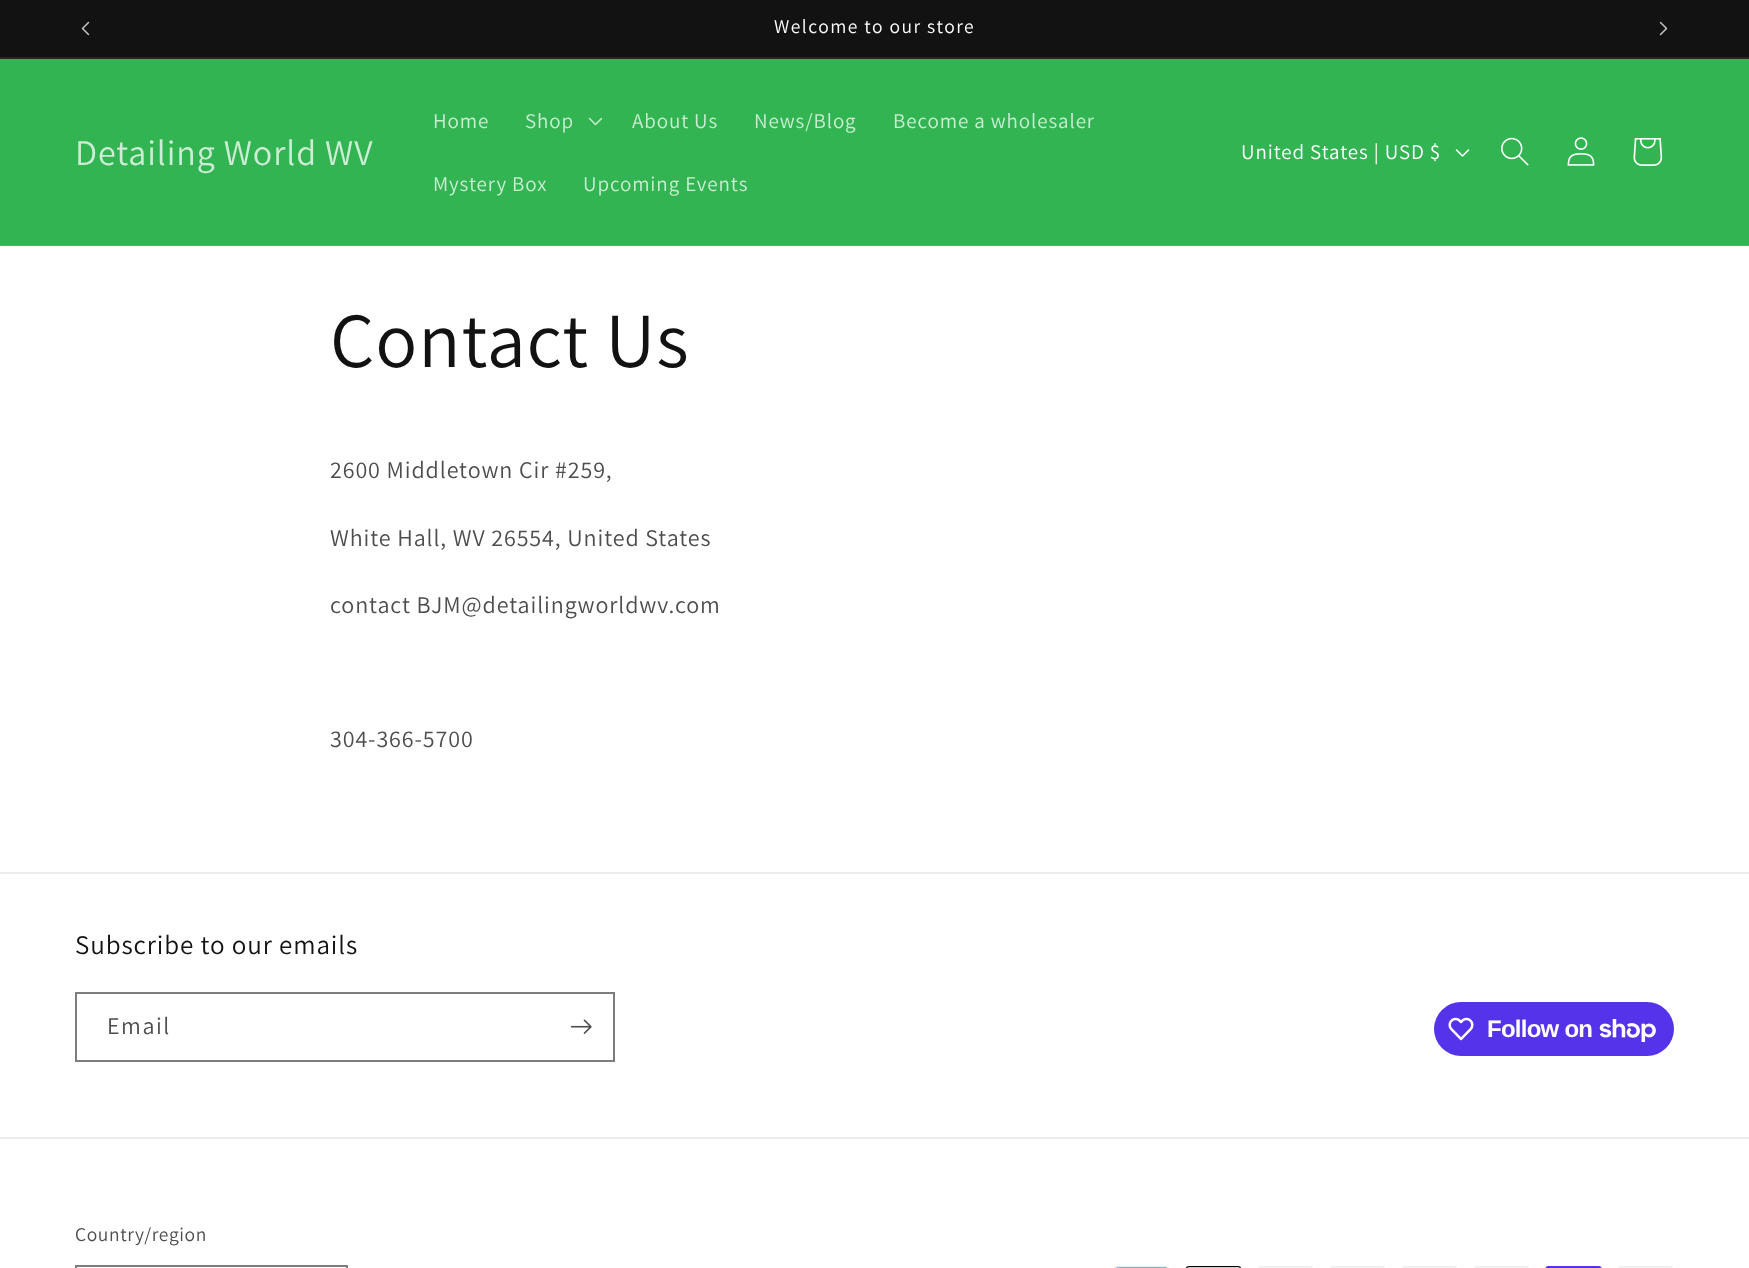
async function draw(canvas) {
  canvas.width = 1749;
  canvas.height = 1268;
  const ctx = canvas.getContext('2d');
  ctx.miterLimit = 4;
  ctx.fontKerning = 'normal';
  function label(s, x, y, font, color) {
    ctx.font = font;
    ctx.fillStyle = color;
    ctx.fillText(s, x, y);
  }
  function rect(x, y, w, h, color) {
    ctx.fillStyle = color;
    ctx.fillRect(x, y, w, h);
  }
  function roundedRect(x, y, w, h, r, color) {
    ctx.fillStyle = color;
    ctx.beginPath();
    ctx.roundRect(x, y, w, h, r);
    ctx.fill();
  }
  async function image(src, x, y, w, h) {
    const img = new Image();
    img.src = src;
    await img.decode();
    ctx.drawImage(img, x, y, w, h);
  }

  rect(0, 0, 1749, 1268, '#fff');
  rect(0, 0, 1749, 57, '#121212');
  rect(0, 57, 1749, 2, '#252525');
  await image('assets/img1.png', 81, 21, 9, 15);
  ctx.letterSpacing = '1.5px';
  label('Welcome to our store', 774, 33, '19.5px Assistant', '#fff');
  await image('assets/img2.png', 1659, 21, 9, 15);
  rect(0, 59, 1749, 186, '#33b452');
  rect(0, 245, 1749, 1, '#43ba60');
  ctx.letterSpacing = '0.9px';
  label('Detailing World WV', 75, 165, '36px Assistant', '#ccecd4');
  label('Home', 433, 128, '21px Assistant', '#ccecd4');
  label('Shop', 525, 128, '21px Assistant', '#ccecd4');
  await image('assets/img3.png', 588, 117, 15, 9);
  label('About Us', 632, 128, '21px Assistant', '#ccecd4');
  label('News/Blog', 754, 128, '21px Assistant', '#ccecd4');
  label('Become a wholesaler', 893, 128, '21px Assistant', '#ccecd4');
  label('Mystery Box', 433, 191, '21px Assistant', '#ccecd4');
  label('Upcoming Events', 583, 191, '21px Assistant', '#ccecd4');
  label('United States | USD $', 1241, 159, '21px Assistant', '#fff');
  await image('assets/img4.png', 1455, 149, 15, 8);
  await image('assets/img5.png', 1501, 137, 28, 29);
  await image('assets/img6.png', 1567, 137, 28, 29);
  await image('assets/img7.png', 1633, 138, 30, 28);
  label('Contact Us', 330, 367, '78px Assistant', '#121212');
  label('2600 Middletown Cir #259,', 330, 478, '24px Assistant', '#4d4d4d');
  label('White Hall, WV 26554, United States', 330, 546, '24px Assistant', '#4d4d4d');
  label('contact BJM@detailingworldwv.com', 330, 613, '24px Assistant', '#4d4d4d');
  label('304-366-5700', 330, 747, '24px Assistant', '#4d4d4d');
  rect(0, 872, 1749, 2, '#ececec');
  label('Subscribe to our emails', 75, 954, '27px Assistant', '#121212');
  ctx.strokeStyle = '#7d7d7d';
  ctx.lineWidth = 2;
  ctx.strokeRect(76, 993, 538, 68);
  ctx.letterSpacing = '1.5px';
  label('Email', 107, 1034, '24px Assistant', '#4d4d4d');
  await image('assets/img8.png', 570, 1019, 22, 15);
  roundedRect(1434, 1002, 240, 54, 27, '#5433eb');
  await image('assets/img9.png', 1448, 1017, 26, 24);
  ctx.letterSpacing = '-0.75px';
  label('Follow on', 1487, 1037, 'bold 24px Liberation Sans', '#fff');
  await image('assets/img10.png', 1599, 1019, 57, 23);
  rect(0, 1137, 1749, 2, '#ececec');
  ctx.letterSpacing = '0.6px';
  label('Country/region', 75, 1241, '19.5px Assistant', '#4d4d4d');
  ctx.strokeRect(76, 1266, 271, 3);
  await image('assets/img11.png', 1114, 1266, 55, 2);
  await image('assets/img12.png', 1185, 1266, 57, 2);
  await image('assets/img13.png', 1258, 1266, 55, 2);
  await image('assets/img13.png', 1330, 1266, 55, 2);
  await image('assets/img13.png', 1402, 1266, 55, 2);
  await image('assets/img13.png', 1474, 1266, 55, 2);
  await image('assets/img14.png', 1545, 1266, 57, 2);
  await image('assets/img13.png', 1618, 1266, 55, 2);
}

draw(document.querySelector('canvas'));
